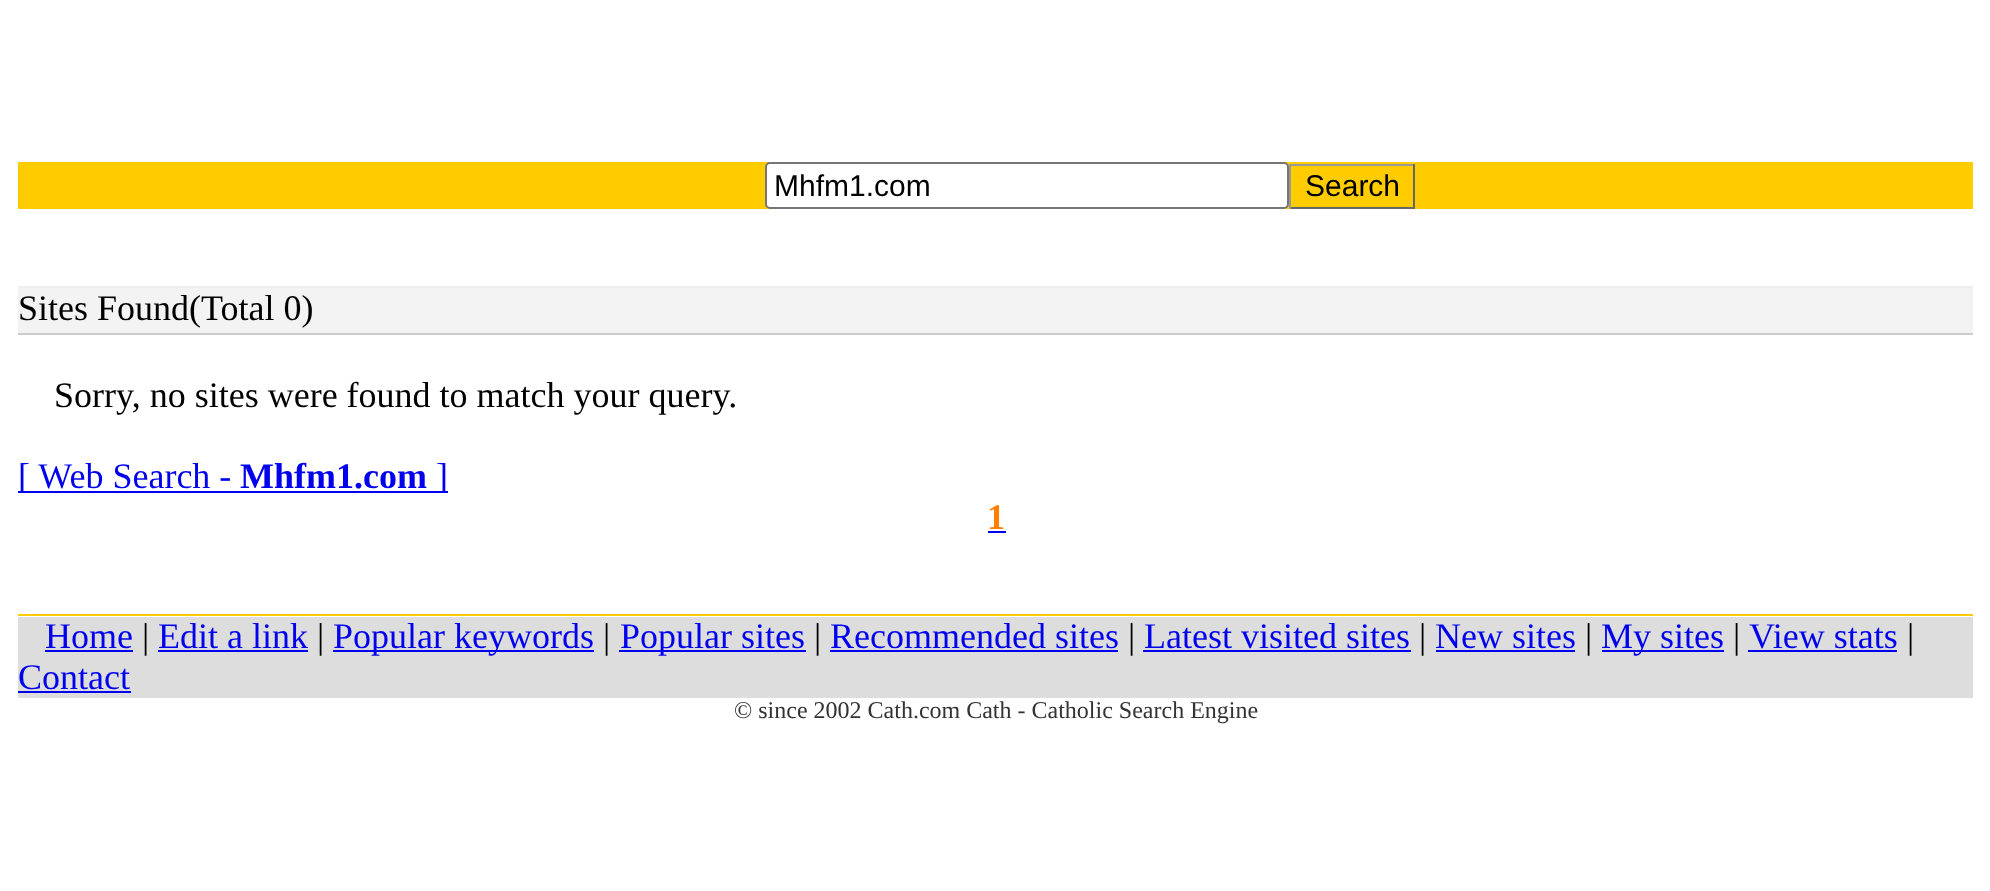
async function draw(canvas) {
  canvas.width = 1990;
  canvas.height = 891;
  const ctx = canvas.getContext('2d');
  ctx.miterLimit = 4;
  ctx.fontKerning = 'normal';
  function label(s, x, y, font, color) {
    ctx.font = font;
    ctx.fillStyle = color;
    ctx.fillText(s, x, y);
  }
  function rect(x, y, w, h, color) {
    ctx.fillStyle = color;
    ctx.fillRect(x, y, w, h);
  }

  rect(0, 0, 1990, 891, '#fff');
  rect(18, 162, 1955, 47, '#fc0');
  ctx.fillStyle = '#fff';
  ctx.beginPath();
  ctx.roundRect(766, 163, 522, 45, 4);
  ctx.fill();
  ctx.strokeStyle = '#767676';
  ctx.lineWidth = 2;
  ctx.stroke();
  label('Mhfm1.com', 774, 196, '30px Liberation Sans', '#000');
  rect(1289, 164, 126, 2, '#999');
  rect(1413, 164, 2, 45, '#666');
  rect(1289, 207, 126, 2, '#666');
  rect(1289, 164, 2, 45, '#999');
  label('Search', 1305, 196, '30px Liberation Sans', '#000');
  rect(18, 286, 1955, 2, '#eee');
  rect(18, 288, 1955, 45, '#f3f3f3');
  label('Sites Found(Total 0)', 18, 320, '36px Liberation Serif', '#000');
  rect(18, 333, 1955, 2, '#ccc');
  label('Sorry, no sites were found to match your query.', 54, 407, '36px Liberation Serif', '#000');
  rect(18, 491, 430, 2, '#00e');
  label('[ Web Search -', 18, 488, '36px Liberation Serif', '#00e');
  label('Mhfm1.com', 240, 488, 'bold 36px Liberation Serif', '#00e');
  label(']', 436, 488, '36px Liberation Serif', '#00e');
  label('1', 987, 529, 'bold 36px Liberation Serif', '#ff8000');
  rect(988, 531, 18, 2, '#00e');
  rect(18, 614, 1955, 2, '#fc0');
  rect(18, 617, 1955, 81, '#ddd');
  label('Home', 45, 648, '36px Liberation Serif', '#00e');
  rect(45, 650, 88, 2, '#00e');
  label('|', 142, 648, '36px Liberation Serif', '#000');
  label('Edit a link', 158, 648, '36px Liberation Serif', '#00e');
  rect(158, 650, 150, 2, '#00e');
  label('|', 317, 648, '36px Liberation Serif', '#000');
  rect(333, 650, 261, 2, '#00e');
  label('Popular keywords', 333, 648, '36px Liberation Serif', '#00e');
  label('|', 603, 648, '36px Liberation Serif', '#000');
  rect(619, 650, 187, 2, '#00e');
  label('Popular sites', 620, 648, '36px Liberation Serif', '#00e');
  label('|', 814, 648, '36px Liberation Serif', '#000');
  label('Recommended sites', 830, 648, '36px Liberation Serif', '#00e');
  rect(830, 650, 288, 2, '#00e');
  label('|', 1128, 648, '36px Liberation Serif', '#000');
  label('Latest visited sites', 1144, 648, '36px Liberation Serif', '#00e');
  rect(1143, 650, 268, 2, '#00e');
  label('|', 1419, 648, '36px Liberation Serif', '#000');
  label('New sites', 1435, 648, '36px Liberation Serif', '#00e');
  rect(1436, 650, 139, 2, '#00e');
  label('|', 1585, 648, '36px Liberation Serif', '#000');
  rect(1602, 650, 122, 2, '#00e');
  label('My sites', 1601, 648, '36px Liberation Serif', '#00e');
  label('|', 1733, 648, '36px Liberation Serif', '#000');
  label('View stats', 1749, 648, '36px Liberation Serif', '#00e');
  rect(1748, 650, 149, 2, '#00e');
  label('|', 1907, 648, '36px Liberation Serif', '#000');
  label('Contact', 18, 689, '36px Liberation Serif', '#00e');
  rect(18, 691, 113, 2, '#00e');
  label('© since 2002 Cath.com Cath - Catholic Search Engine', 734, 718, '24px Liberation Serif', '#333');
}

draw(document.querySelector('canvas'));
